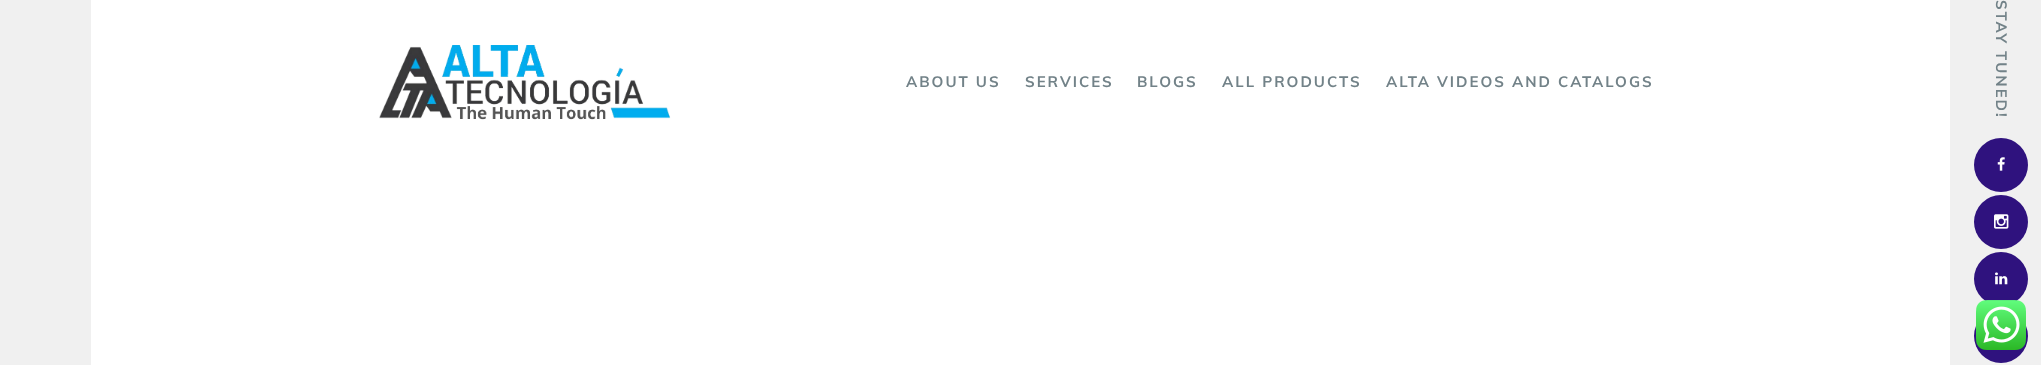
async function draw(canvas) {
  canvas.width = 2041;
  canvas.height = 365;
  const ctx = canvas.getContext('2d');
  ctx.miterLimit = 4;
  ctx.fontKerning = 'normal';
  function label(s, x, y, font, color) {
    ctx.font = font;
    ctx.fillStyle = color;
    ctx.fillText(s, x, y);
  }
  function rect(x, y, w, h, color) {
    ctx.fillStyle = color;
    ctx.fillRect(x, y, w, h);
  }
  async function image(src, x, y, w, h) {
    const img = new Image();
    img.src = src;
    await img.decode();
    ctx.drawImage(img, x, y, w, h);
  }

  rect(0, 0, 2041, 365, '#f0f0f0');
  rect(91, 0, 1859, 365, '#fff');
  await image('assets/img1.png', 379, 45, 292, 75);
  ctx.letterSpacing = '2px';
  label('ABOUT US', 906, 87, 'bold 15px Muli', '#728288');
  label('SERVICES', 1025, 87, 'bold 15px Muli', '#728288');
  label('BLOGS', 1137, 87, 'bold 15px Muli', '#728288');
  label('ALL PRODUCTS', 1222, 87, 'bold 15px Muli', '#728288');
  label('ALTA VIDEOS AND CATALOGS', 1386, 87, 'bold 15px Muli', '#728288');
  ctx.save();
  ctx.translate(1996, 0);
  ctx.rotate(90 * Math.PI / 180);
  ctx.fillText('STAY TUNED!', 0, 0);
  ctx.restore();
  ctx.fillStyle = '#2f127e';
  ctx.beginPath();
  ctx.arc(2001, 165, 27, 0, 2 * Math.PI);
  ctx.fill();
  await image('assets/img2.png', 1997, 157, 8, 14);
  ctx.beginPath();
  ctx.arc(2001, 222, 27, 0, 2 * Math.PI);
  ctx.fill();
  await image('assets/img3.png', 1994, 214, 15, 15);
  ctx.beginPath();
  ctx.arc(2001, 279, 27, 0, 2 * Math.PI);
  ctx.fill();
  await image('assets/img4.png', 1995, 272, 13, 13);
  ctx.beginPath();
  ctx.arc(2001, 336, 27, 0, 2 * Math.PI);
  ctx.fill();
  await image('assets/img5.png', 1976, 300, 50, 50);
}

draw(document.querySelector('canvas'));
